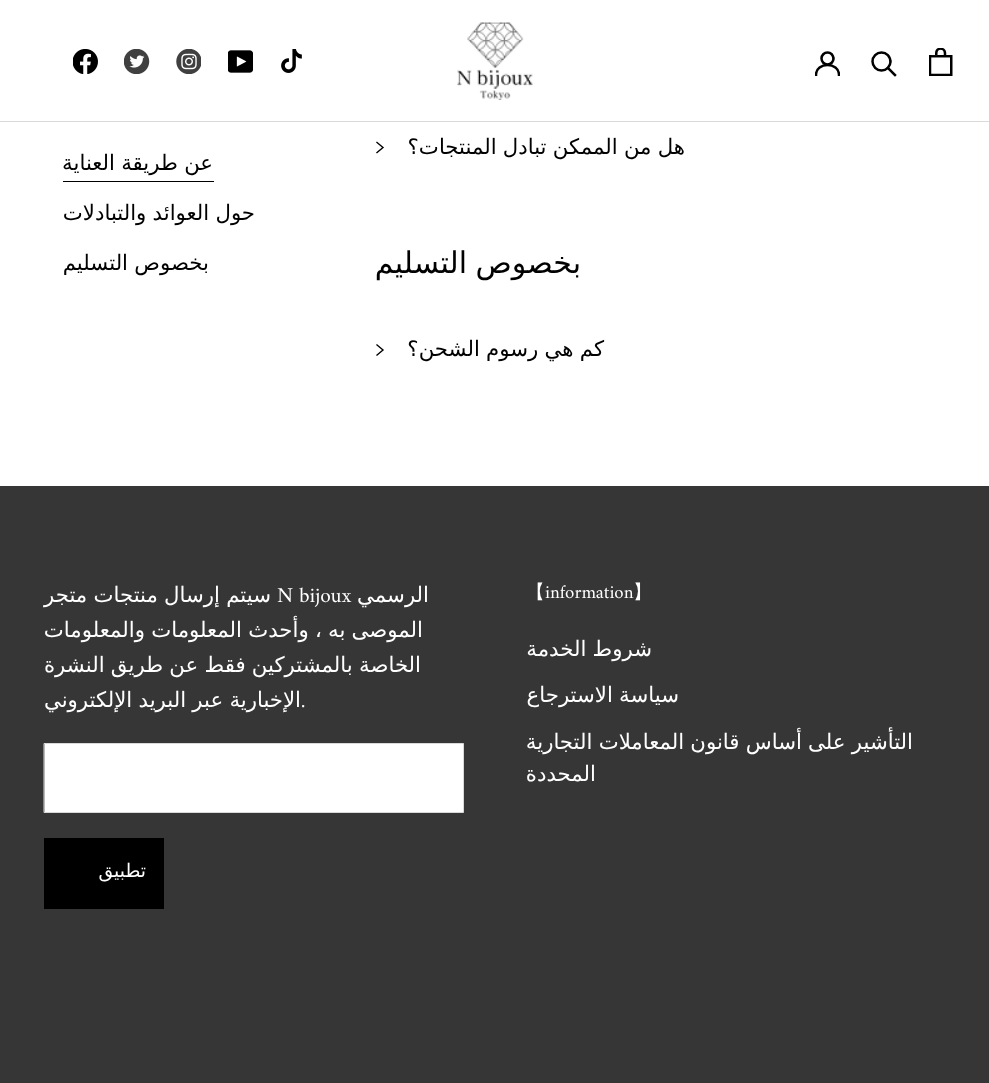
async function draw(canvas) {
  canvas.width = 989;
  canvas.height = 1083;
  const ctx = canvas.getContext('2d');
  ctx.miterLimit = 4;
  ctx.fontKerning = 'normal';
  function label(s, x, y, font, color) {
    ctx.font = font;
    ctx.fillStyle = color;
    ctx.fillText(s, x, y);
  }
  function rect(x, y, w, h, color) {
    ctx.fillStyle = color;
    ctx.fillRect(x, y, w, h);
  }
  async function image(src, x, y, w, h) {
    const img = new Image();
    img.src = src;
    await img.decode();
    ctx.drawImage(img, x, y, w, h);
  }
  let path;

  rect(0, 0, 989, 1083, '#fff');
  rect(0, 121, 989, 1, '#d9d9d9');
  await image('assets/img1.png', 929, 48, 24, 28);
  path = new Path2D('M895 75L888 68');
  ctx.strokeStyle = '#000';
  ctx.lineWidth = 2.5;
  ctx.lineCap = 'square';
  ctx.stroke(path);
  ctx.beginPath();
  ctx.arc(881.5, 61.5, 9, 0, 2 * Math.PI);
  ctx.stroke();
  ctx.save();
  ctx.beginPath();
  ctx.rect(815, 51, 25, 25);
  ctx.clip();
  path = new Path2D('M816 75C816 61.5 839 61.5 839 75');
  ctx.stroke(path);
  ctx.restore();
  ctx.beginPath();
  ctx.arc(827.5, 58.5, 6, 0, 2 * Math.PI);
  ctx.stroke();
  await image('assets/img2.png', 457, 22, 76, 78);
  await image('assets/img3.png', 281, 49, 21, 24);
  await image('assets/img4.png', 228, 50, 25, 23);
  await image('assets/img5.png', 176, 49, 25, 25);
  await image('assets/img6.png', 124, 49, 26, 25);
  await image('assets/img7.png', 73, 49, 25, 25);
  ctx.wordSpacing = '-0.5px';
  ctx.direction = 'rtl';
  label('هل من الممكن تبادل المنتجات؟', 685, 154, '21.25px DejaVu Sans', '#000');
  path = new Path2D('M377 142.5L383 147.5L377 152.5');
  ctx.lineWidth = 1.4;
  ctx.stroke(path);
  ctx.wordSpacing = '-1px';
  label('بخصوص التسليم', 581, 273, '30px DejaVu Sans', '#000');
  ctx.wordSpacing = '-0.5px';
  label('كم هي رسوم الشحن؟', 604, 356, '21.25px DejaVu Sans', '#000');
  path = new Path2D('M377 345L383 350L377 355');
  ctx.stroke(path);
  label('عن طريقة العناية', 213, 170, '21.25px DejaVu Sans', '#000');
  rect(63, 181, 151, 1, '#000');
  label('حول العوائد والتبادلات', 255, 220, '21.25px DejaVu Sans', '#000');
  label('بخصوص التسليم', 209, 270, '21.25px DejaVu Sans', '#000');
  rect(0, 486, 989, 597, '#363636');
  ctx.wordSpacing = '0px';
  ctx.direction = 'ltr';
  label('】', 633, 598, '500 18.75px WenQuanYi Zen Hei', '#fff');
  label('information', 545, 598, '18.75px Amiri', '#fff');
  label('【', 526, 598, '500 18.75px WenQuanYi Zen Hei', '#fff');
  ctx.wordSpacing = '-0.5px';
  ctx.direction = 'rtl';
  label('شروط الخدمة', 652, 656, '21.25px DejaVu Sans', '#fff');
  label('سياسة الاسترجاع', 679, 702, '21.25px DejaVu Sans', '#fff');
  label('التأشير على أساس قانون المعاملات التجارية', 913, 749, '21.25px DejaVu Sans', '#fff');
  ctx.wordSpacing = '0px';
  label('المحددة', 596, 781, '21.25px DejaVu Sans', '#fff');
  label('الرسمي', 429, 602, '21.25px DejaVu Sans', '#fff');
  ctx.direction = 'ltr';
  label('N bijoux', 277, 602, '21.25px Amiri', '#fff');
  ctx.wordSpacing = '-0.5px';
  ctx.direction = 'rtl';
  label('سيتم إرسال منتجات متجر', 271, 602, '21.25px DejaVu Sans', '#fff');
  label('الموصى به ، وأحدث المعلومات والمعلومات', 423, 637, '21.25px DejaVu Sans', '#fff');
  label('الخاصة بالمشتركين فقط عن طريق النشرة', 421, 672, '21.25px DejaVu Sans', '#fff');
  ctx.wordSpacing = '0px';
  ctx.direction = 'ltr';
  label('.', 301, 707, '21.25px Amiri', '#fff');
  ctx.wordSpacing = '-0.5px';
  ctx.direction = 'rtl';
  label('الإخبارية عبر البريد الإلكتروني', 301, 707, '21.25px DejaVu Sans', '#fff');
  ctx.beginPath();
  ctx.rect(44.5, 743.5, 419, 69);
  ctx.fill();
  ctx.strokeStyle = '#d9d9d9';
  ctx.lineWidth = 1;
  ctx.stroke();
  ctx.strokeStyle = '#000';
  ctx.strokeRect(44.5, 838.5, 119, 70);
  rect(45, 839, 118, 69, '#000');
  ctx.letterSpacing = '3.75px';
  ctx.wordSpacing = '0px';
  label('تطبيق', 146, 877, '18.75px DejaVu Sans', '#fff');
}

draw(document.querySelector('canvas'));
